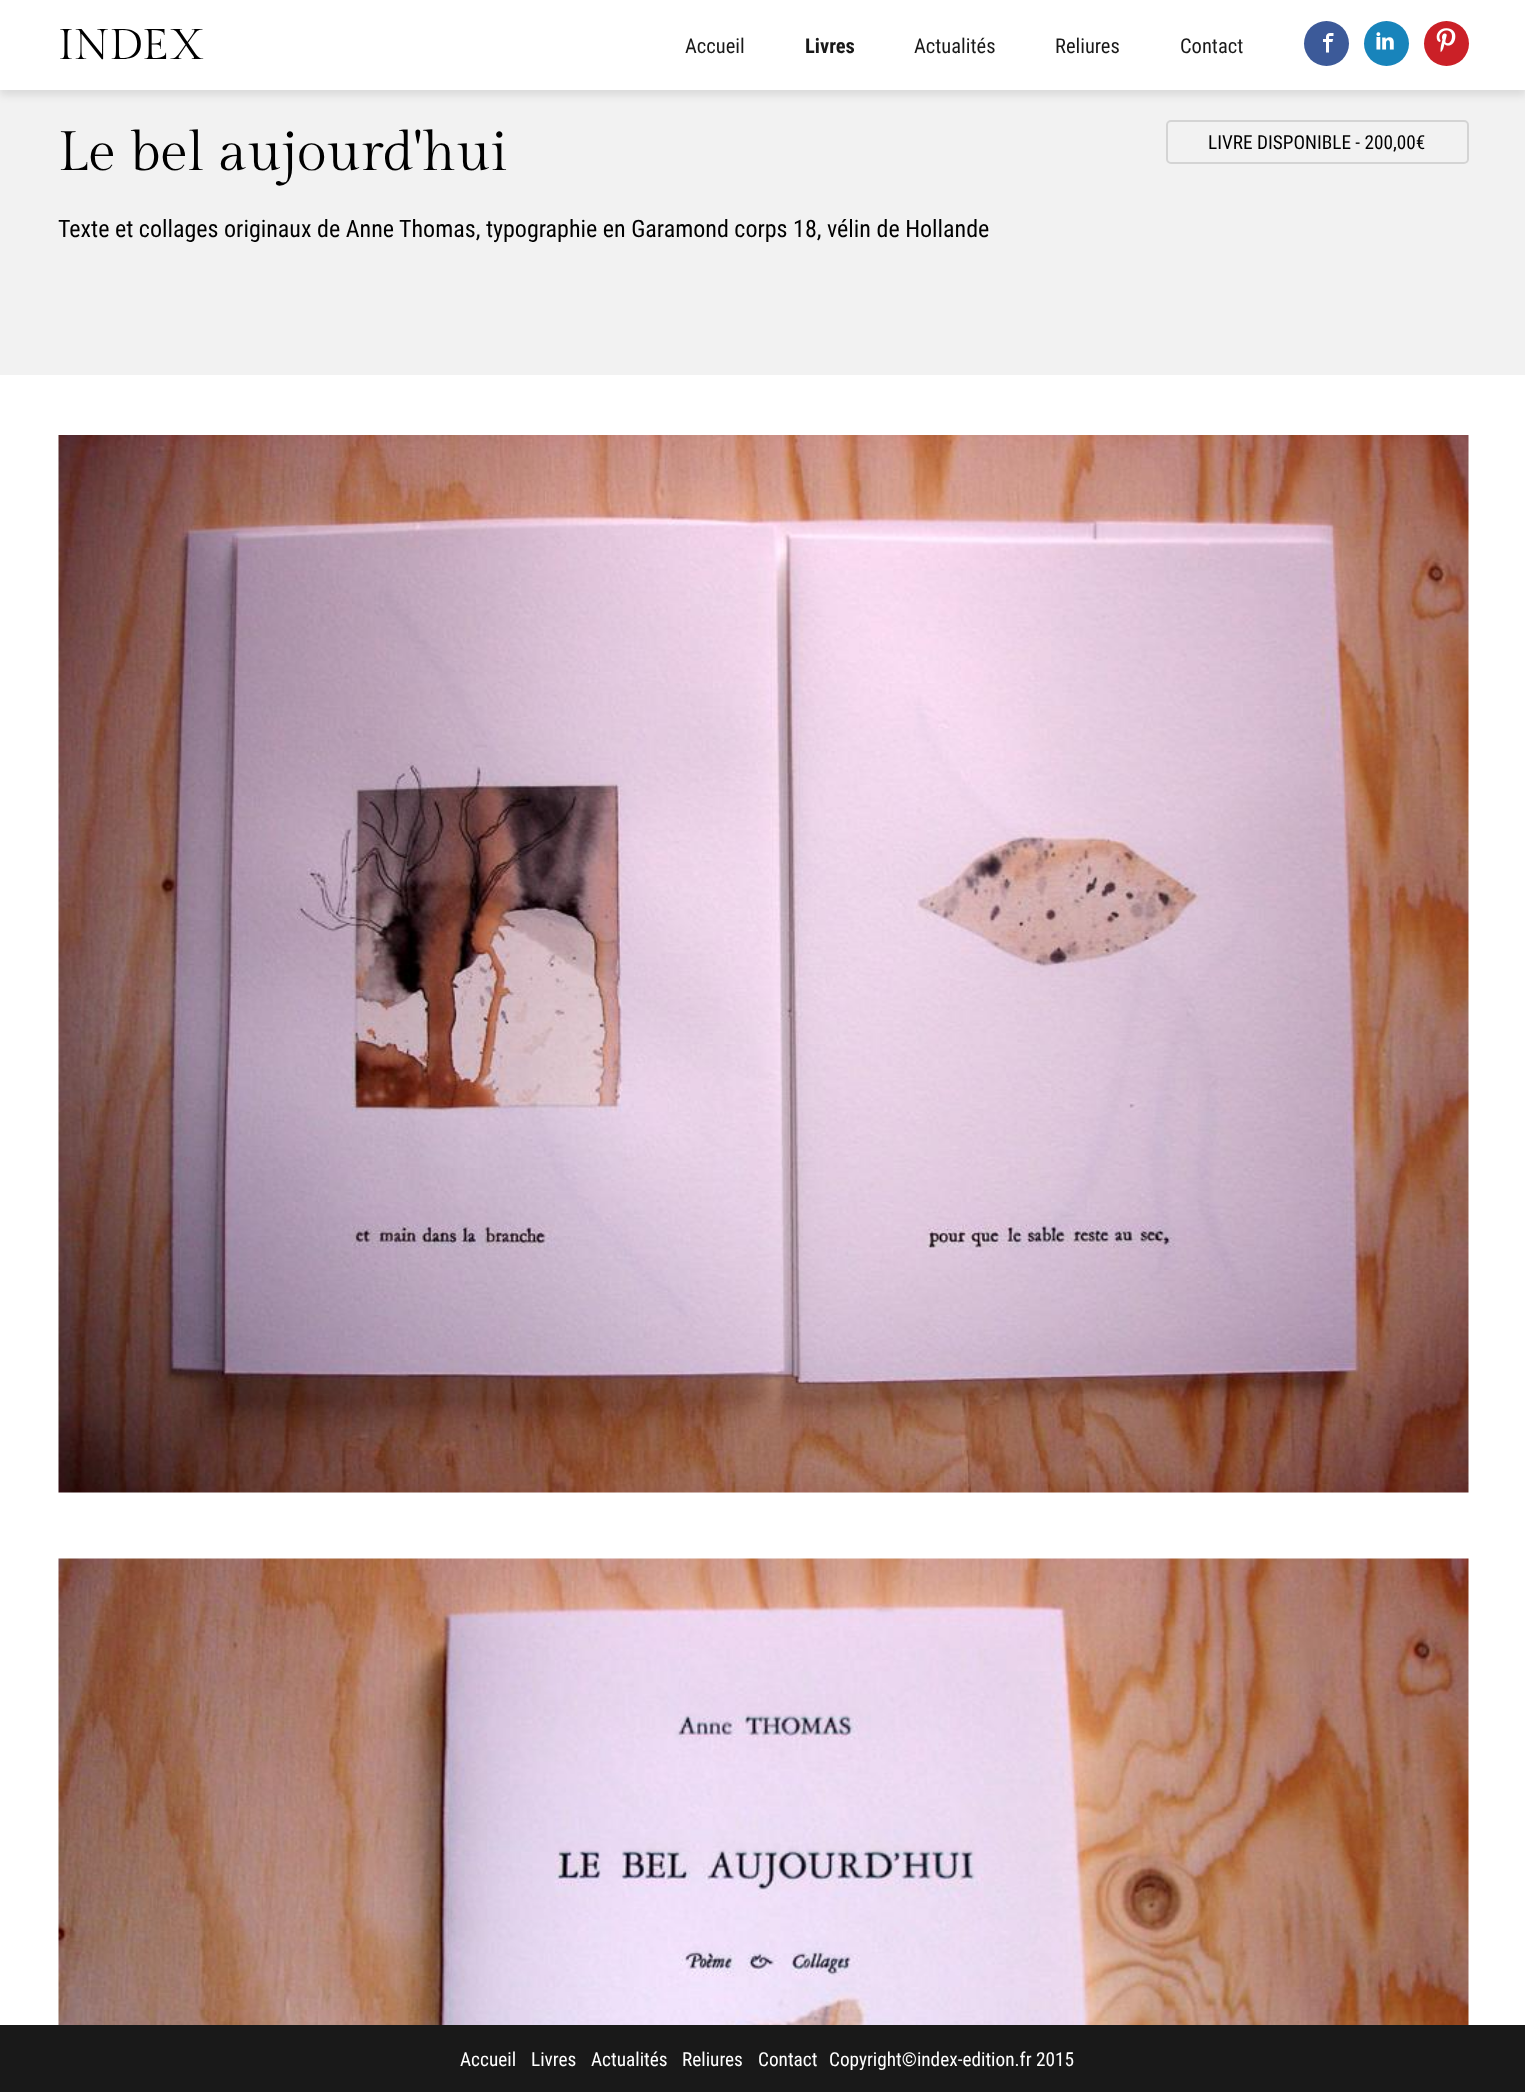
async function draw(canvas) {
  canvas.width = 1525;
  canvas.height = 2092;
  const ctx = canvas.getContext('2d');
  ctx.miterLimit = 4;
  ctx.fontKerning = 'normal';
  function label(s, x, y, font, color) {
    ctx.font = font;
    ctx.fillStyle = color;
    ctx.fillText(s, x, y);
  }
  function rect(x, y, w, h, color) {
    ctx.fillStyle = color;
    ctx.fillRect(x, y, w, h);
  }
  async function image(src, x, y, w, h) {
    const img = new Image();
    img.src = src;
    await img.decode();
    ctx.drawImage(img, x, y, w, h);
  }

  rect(0, 0, 1525, 2092, '#f2f2f2');
  ctx.fillStyle = '#0000001a';
  ctx.filter = 'blur(4px)';
  ctx.beginPath();
  ctx.rect(0, 5, 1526, 90);
  ctx.fill();
  ctx.filter = 'none';
  rect(0, 0, 1525, 90, '#fff');
  label('INDEX', 58, 59, '43px Gilda Display', '#000');
  label('Accueil', 685, 53, '20.5px Roboto Condensed', '#191919');
  label('Livres', 805, 53, 'bold 20.5px Roboto Condensed', '#191919');
  label('Actualités', 914, 53, '20.5px Roboto Condensed', '#191919');
  label('Reliures', 1055, 53, '20.5px Roboto Condensed', '#191919');
  label('Contact', 1180, 53, '20.5px Roboto Condensed', '#191919');
  ctx.fillStyle = '#3c5a99';
  ctx.beginPath();
  ctx.arc(1326.5, 43.5, 22.5, 0, 2 * Math.PI);
  ctx.fill();
  await image('assets/img1.png', 1323, 33, 11, 20);
  ctx.fillStyle = '#1884bb';
  ctx.beginPath();
  ctx.arc(1386.5, 43.5, 22.5, 0, 2 * Math.PI);
  ctx.fill();
  await image('assets/img2.png', 1376, 32, 18, 18);
  ctx.fillStyle = '#cb2027';
  ctx.beginPath();
  ctx.arc(1446.5, 43.5, 22.5, 0, 2 * Math.PI);
  ctx.fill();
  await image('assets/img3.png', 1436, 28, 20, 25);
  label('Le bel aujourd\'hui', 58, 170, '55.25px Gilda Display', '#000');
  ctx.beginPath();
  ctx.roundRect(1167, 121, 301, 42, 4);
  ctx.strokeStyle = '#d4d4d4';
  ctx.lineWidth = 2;
  ctx.stroke();
  label('LIVRE DISPONIBLE - 200,00€', 1208, 149, '19.25px Roboto Condensed', '#000');
  label('Texte et collages originaux de Anne Thomas, typographie en Garamond corps 18, vélin de Hollande', 58, 237, '24px Roboto Condensed', '#000');
  rect(0, 375, 1525, 1650, '#fff');
  await image('assets/img4.png', 58, 435, 1411, 1058);
  await image('assets/img5.png', 58, 1558, 1411, 467);
  rect(0, 2025, 1525, 67, '#191919');
  label('Accueil', 460, 2066, '19.25px Roboto Condensed', '#fff');
  label('Livres', 531, 2066, '19.25px Roboto Condensed', '#fff');
  label('Actualités', 591, 2066, '19.25px Roboto Condensed', '#fff');
  label('Reliures', 682, 2066, '19.25px Roboto Condensed', '#fff');
  label('Contact', 758, 2066, '19.25px Roboto Condensed', '#fff');
  label('Copyright©index-edition.fr 2015', 829, 2066, '19.25px Roboto Condensed', '#fff');
}

draw(document.querySelector('canvas'));
